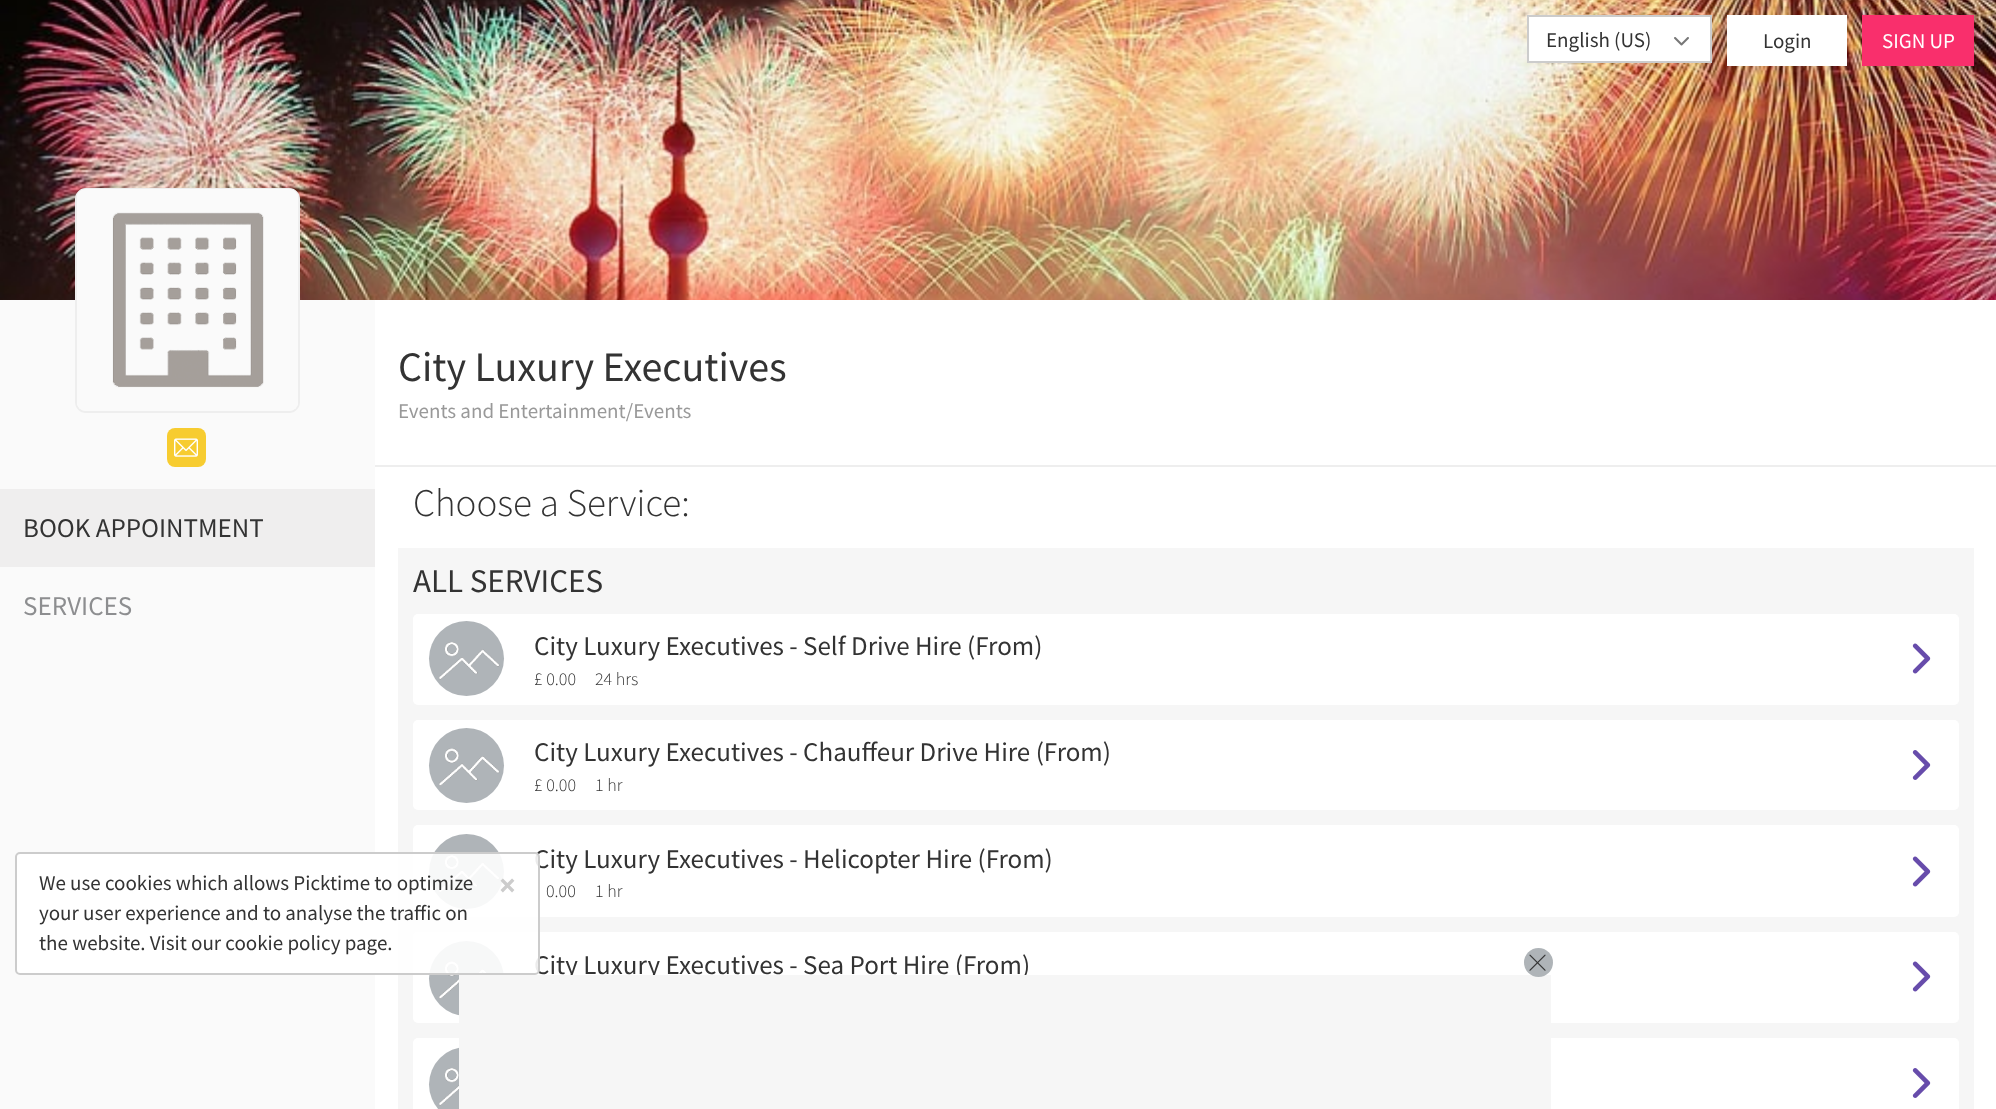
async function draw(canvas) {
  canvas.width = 1996;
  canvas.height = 1109;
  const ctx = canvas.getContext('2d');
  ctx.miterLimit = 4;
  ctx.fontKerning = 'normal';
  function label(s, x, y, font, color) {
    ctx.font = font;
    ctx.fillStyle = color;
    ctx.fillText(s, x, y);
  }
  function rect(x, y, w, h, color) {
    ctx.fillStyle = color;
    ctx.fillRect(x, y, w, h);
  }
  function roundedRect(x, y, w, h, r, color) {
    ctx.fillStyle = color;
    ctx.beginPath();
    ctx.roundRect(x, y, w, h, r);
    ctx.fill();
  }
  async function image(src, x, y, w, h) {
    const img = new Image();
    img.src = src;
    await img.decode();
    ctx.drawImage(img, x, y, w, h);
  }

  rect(0, 0, 1996, 1109, '#fafafa');
  await image('assets/img1.png', 0, 0, 1996, 300);
  ctx.fillStyle = '#fff';
  ctx.beginPath();
  ctx.rect(1528, 16, 183, 46);
  ctx.fill();
  ctx.strokeStyle = '#ccc';
  ctx.lineWidth = 2;
  ctx.stroke();
  label('English (US)', 1546, 47, '21px Source Sans Pro', '#333');
  await image('assets/img2.png', 1674, 37, 15, 9);
  rect(1727, 15, 120, 51, '#fff');
  label('Login', 1763, 48, '21px Source Sans Pro', '#333');
  rect(1862, 15, 112, 51, '#f92f6c');
  label('SIGN UP', 1882, 48, '21px Source Sans Pro', '#fff');
  ctx.beginPath();
  ctx.roundRect(76, 189, 223, 223, 10);
  ctx.strokeStyle = '#eee';
  ctx.stroke();
  await image('assets/img3.png', 77, 189, 221, 222);
  roundedRect(167, 428, 39, 39, 8, '#f7cc30');
  await image('assets/img4.png', 174, 438, 24, 19);
  rect(0, 489, 375, 78, '#efeeee');
  label('BOOK APPOINTMENT', 23, 537, '27px Source Sans Pro', '#333');
  label('SERVICES', 23, 615, '27px Source Sans Pro', '#8d8e90');
  rect(375, 300, 1621, 809, '#fff');
  rect(375, 465, 1621, 2, '#eee');
  label('City Luxury Executives', 398, 381, '42px Source Sans Pro', '#333');
  label('Events and Entertainment/Events', 398, 418, '21px Source Sans Pro', '#999');
  label('Choose a Service:', 413, 516, '300 39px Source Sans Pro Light', '#333');
  rect(398, 548, 1576, 561, '#f6f6f6');
  label('ALL SERVICES', 413, 592, '33px Source Sans Pro', '#333');
  roundedRect(413, 614, 1546, 91, 5, '#fff');
  ctx.fillStyle = '#afb4b8';
  ctx.beginPath();
  ctx.arc(466.5, 658.5, 37.5, 0, 2 * Math.PI);
  ctx.fill();
  await image('assets/img5.png', 439, 642, 61, 38);
  label('City Luxury Executives - Self Drive Hire (From)', 534, 655, '27px Source Sans Pro', '#333');
  label('£ 0.00', 534, 685, '300 18px Source Sans Pro Light', '#333');
  label('24 hrs', 595, 685, '300 18px Source Sans Pro Light', '#333');
  await image('assets/img6.png', 1912, 643, 19, 31);
  roundedRect(413, 720, 1546, 90, 5, '#fff');
  ctx.fillStyle = '#afb4b8';
  ctx.beginPath();
  ctx.arc(466.5, 765.5, 37.5, 0, 2 * Math.PI);
  ctx.fill();
  await image('assets/img7.png', 439, 748, 61, 38);
  label('City Luxury Executives - Chauffeur Drive Hire (From)', 534, 761, '27px Source Sans Pro', '#333');
  label('£ 0.00', 534, 791, '300 18px Source Sans Pro Light', '#333');
  label('1 hr', 595, 791, '300 18px Source Sans Pro Light', '#333');
  await image('assets/img8.png', 1912, 750, 19, 30);
  roundedRect(413, 825, 1546, 92, 5, '#fff');
  ctx.fillStyle = '#afb4b8';
  ctx.beginPath();
  ctx.arc(466.5, 871.5, 37.5, 0, 2 * Math.PI);
  ctx.fill();
  await image('assets/img5.png', 439, 855, 61, 38);
  label('City Luxury Executives - Helicopter Hire (From)', 534, 868, '27px Source Sans Pro', '#333');
  label('0.00', 546, 897, '300 18px Source Sans Pro Light', '#333');
  label('1 hr', 595, 897, '300 18px Source Sans Pro Light', '#333');
  await image('assets/img6.png', 1912, 856, 19, 31);
  roundedRect(413, 932, 1546, 91, 5, '#fff');
  ctx.fillStyle = '#afb4b8';
  ctx.beginPath();
  ctx.arc(466.5, 978.5, 37.5, 0, 2 * Math.PI);
  ctx.fill();
  await image('assets/img9.png', 439, 961, 49, 38);
  label('City Luxury Executives - Sea Port Hire (From)', 534, 974, '27px Source Sans Pro', '#333');
  await image('assets/img6.png', 1912, 961, 19, 31);
  roundedRect(413, 1038, 1546, 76, 5, '#fff');
  ctx.fillStyle = '#afb4b8';
  ctx.beginPath();
  ctx.arc(466.5, 1084.5, 37.5, 0, 2 * Math.PI);
  ctx.fill();
  await image('assets/img10.png', 439, 1068, 20, 38);
  await image('assets/img8.png', 1912, 1068, 19, 30);
  ctx.fillStyle = '#ffffffe6';
  ctx.beginPath();
  ctx.roundRect(16, 853, 523, 121, 4);
  ctx.fill();
  ctx.strokeStyle = '#ccc';
  ctx.stroke();
  label('We use cookies which allows Picktime to optimize', 39, 890, '21px Source Sans Pro', '#333');
  label('×', 499, 896, 'bold 32px Source Sans Pro', '#ccc');
  label('your user experience and to analyse the traffic on', 39, 920, '21px Source Sans Pro', '#333');
  label('the website. Visit our cookie policy page.', 39, 950, '21px Source Sans Pro', '#333');
  rect(459, 975, 1092, 134, '#f6f6f6');
  ctx.fillStyle = '#afb4b8';
  ctx.beginPath();
  ctx.arc(1538.5, 962.5, 14.5, 0, 2 * Math.PI);
  ctx.fill();
  await image('assets/img11.png', 1529, 954, 17, 17);
}

draw(document.querySelector('canvas'));
